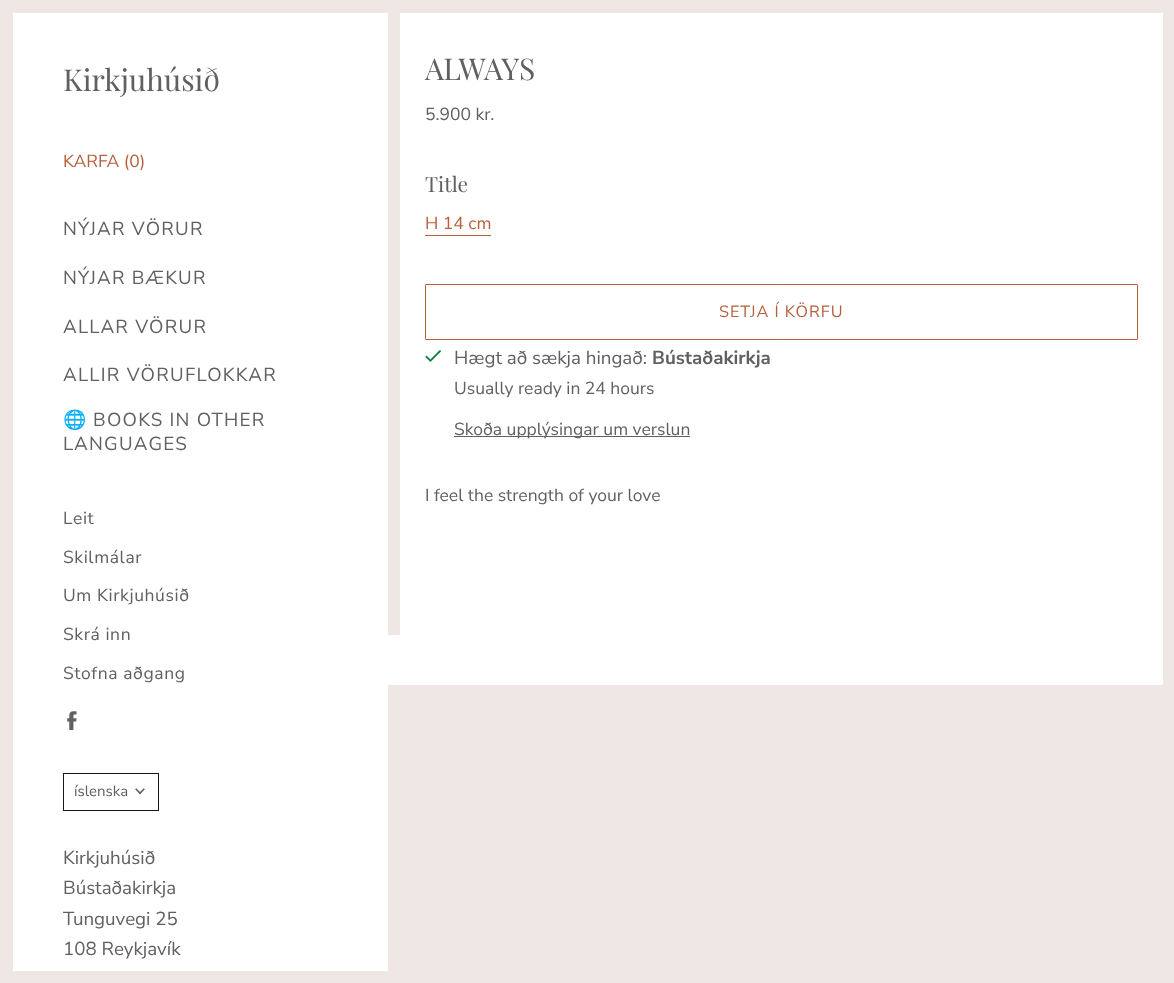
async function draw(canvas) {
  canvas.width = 1174;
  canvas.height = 983;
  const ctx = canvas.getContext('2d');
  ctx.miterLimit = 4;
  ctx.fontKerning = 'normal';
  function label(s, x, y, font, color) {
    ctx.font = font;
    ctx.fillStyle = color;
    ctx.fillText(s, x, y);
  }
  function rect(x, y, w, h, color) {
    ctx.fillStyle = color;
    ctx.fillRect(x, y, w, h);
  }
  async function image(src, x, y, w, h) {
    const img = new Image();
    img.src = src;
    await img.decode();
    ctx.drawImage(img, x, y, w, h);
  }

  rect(0, 0, 1174, 983, '#efe7e4');
  rect(13, 13, 375, 958, '#fff');
  label('Kirkjuhúsið', 63, 91, '30px Playfair Display', '#606060');
  label('KARFA (0)', 63, 167, '17.5px Nunito Sans', '#b55f3b');
  ctx.letterSpacing = '1.25px';
  label('NÝJAR VÖRUR', 63, 235, '18.75px Nunito Sans', '#606060');
  label('NÝJAR BÆKUR', 63, 284, '18.75px Nunito Sans', '#606060');
  label('ALLAR VÖRUR', 63, 333, '18.75px Nunito Sans', '#606060');
  label('ALLIR VÖRUFLOKKAR', 63, 381, '18.75px Nunito Sans', '#606060');
  label('🌐', 63, 426, '18.75px Noto Color Emoji', '#606060');
  label('BOOKS IN OTHER', 93, 426, '18.75px Nunito Sans', '#606060');
  label('LANGUAGES', 63, 450, '18.75px Nunito Sans', '#606060');
  ctx.letterSpacing = '0.6px';
  label('Leit', 63, 524, '17.5px Nunito Sans', '#606060');
  label('Skilmálar', 63, 563, '17.5px Nunito Sans', '#606060');
  label('Um Kirkjuhúsið', 63, 601, '17.5px Nunito Sans', '#606060');
  label('Skrá inn', 63, 640, '17.5px Nunito Sans', '#606060');
  label('Stofna aðgang', 63, 679, '17.5px Nunito Sans', '#606060');
  await image('assets/img1.png', 67, 711, 10, 19);
  ctx.strokeStyle = '#181717';
  ctx.strokeRect(63.5, 773.5, 95, 37);
  ctx.letterSpacing = '0px';
  label('íslenska', 74, 796, '15px Nunito Sans', '#606060');
  await image('assets/img2.png', 135, 788, 10, 7);
  label('Kirkjuhúsið', 63, 864, '18.75px Nunito Sans', '#606060');
  label('Bústaðakirkja', 63, 894, '18.75px Nunito Sans', '#606060');
  label('Tunguvegi 25', 63, 925, '18.75px Nunito Sans', '#606060');
  label('108 Reykjavík', 63, 955, '18.75px Nunito Sans', '#606060');
  rect(400, 13, 763, 622, '#fff');
  label('ALWAYS', 425, 80, '30px Playfair Display', '#606060');
  label('5.900 kr.', 425, 120, '17.5px Nunito Sans', '#606060');
  label('Title', 425, 192, '21px Playfair Display', '#606060');
  label('H 14 cm', 425, 229, '17.5px Nunito Sans', '#b55f3b');
  rect(425, 235, 66, 1, '#b55f3b');
  ctx.beginPath();
  ctx.roundRect(425.5, 284.5, 712, 55, 0.5);
  ctx.strokeStyle = '#b55f3b';
  ctx.stroke();
  ctx.letterSpacing = '1px';
  label('SETJA Í KÖRFU', 719, 317, '16.25px Nunito Sans', '#b55f3b');
  await image('assets/img3.png', 425, 350, 16, 12);
  ctx.letterSpacing = '0px';
  label('Hægt að sækja hingað:', 454, 364, '18.75px Nunito Sans', '#606060');
  label('Bústaðakirkja', 652, 364, 'bold 18.75px Nunito Sans', '#606060');
  label('Usually ready in 24 hours', 454, 394, '17.5px Nunito Sans', '#606060');
  rect(454, 436, 236, 1, '#606060');
  label('Skoða upplýsingar um verslun', 454, 435, '17.5px Nunito Sans', '#606060');
  label('I feel the strength of your love', 425, 501, '17.5px Nunito Sans', '#606060');
  rect(388, 635, 775, 50, '#fff');
}

draw(document.querySelector('canvas'));
